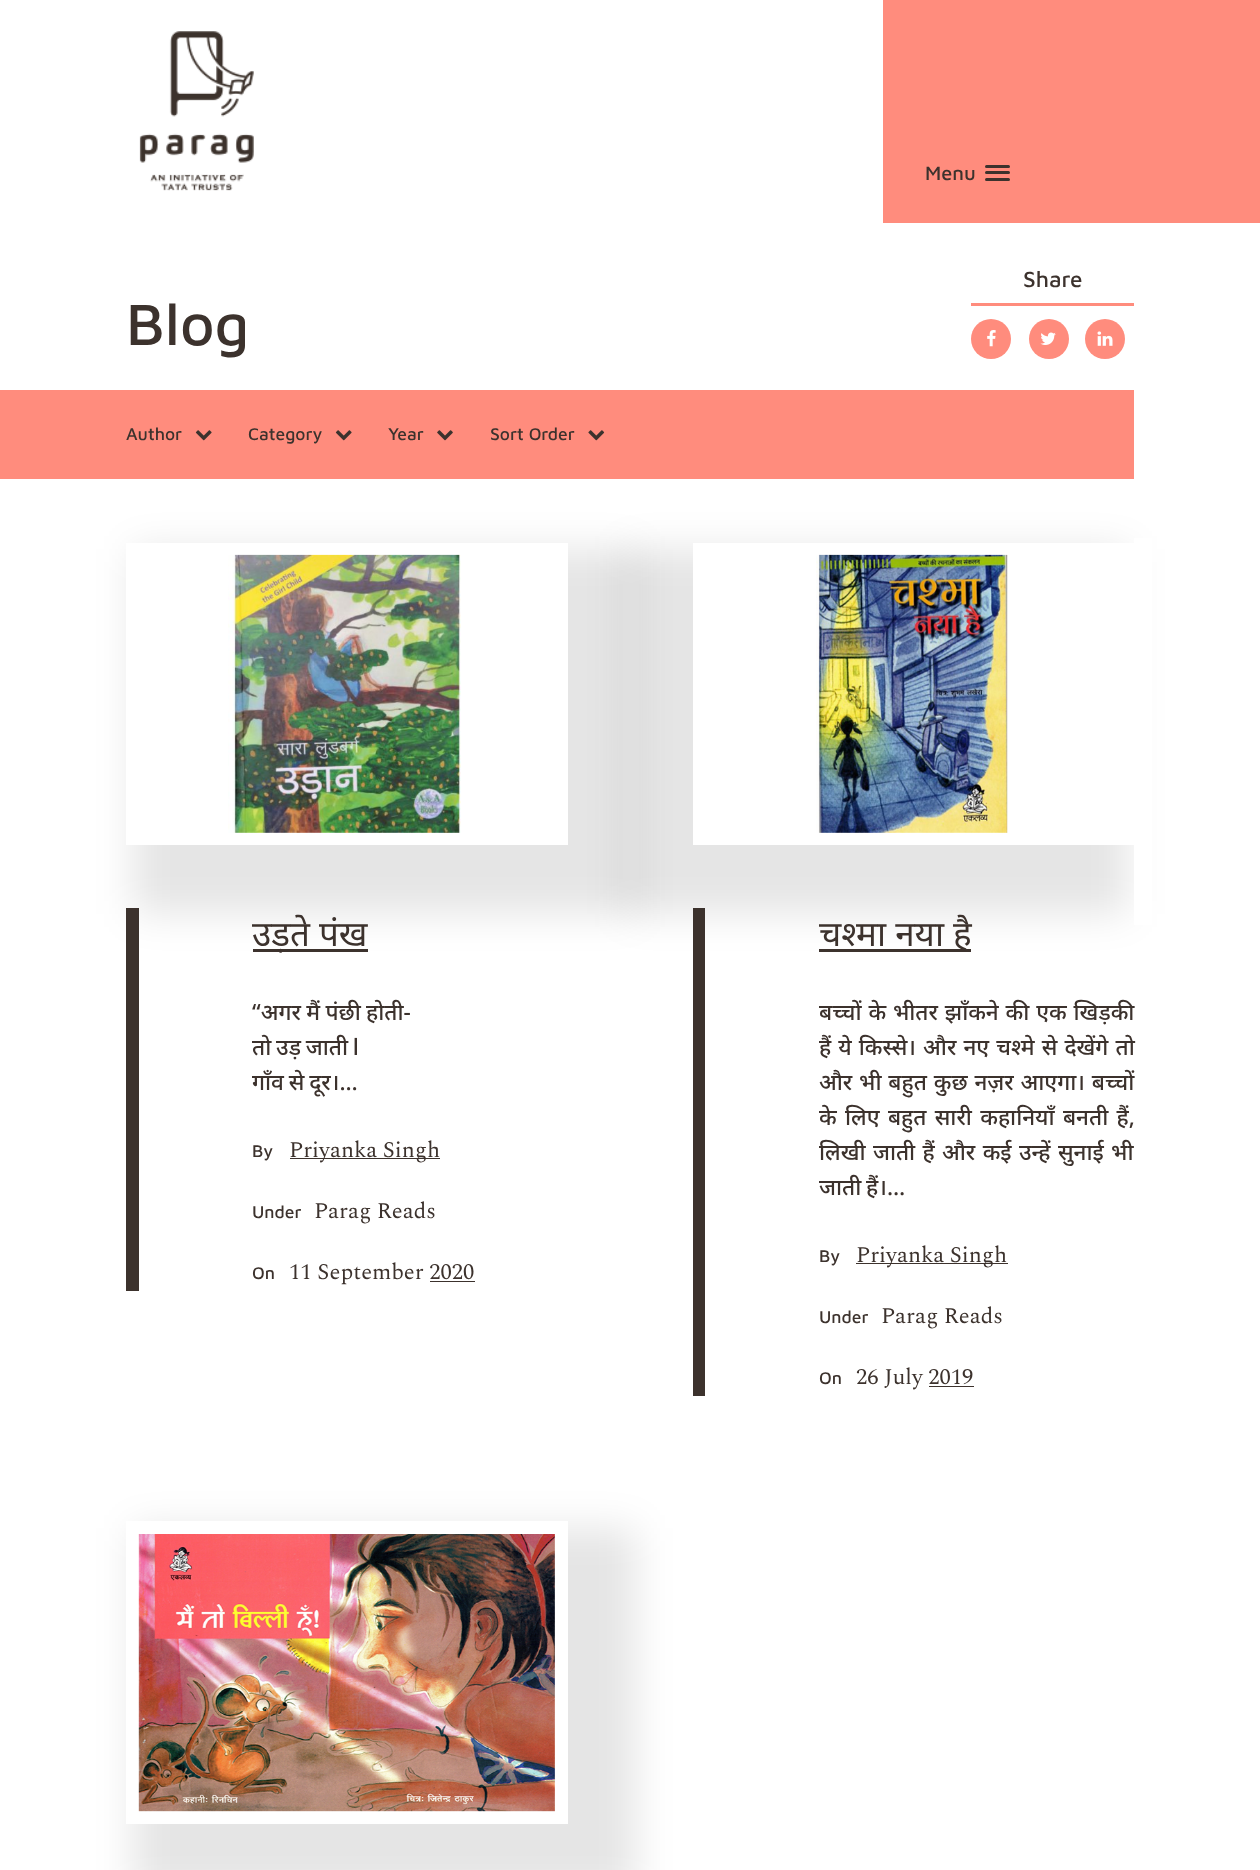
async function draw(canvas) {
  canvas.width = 1260;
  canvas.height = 1870;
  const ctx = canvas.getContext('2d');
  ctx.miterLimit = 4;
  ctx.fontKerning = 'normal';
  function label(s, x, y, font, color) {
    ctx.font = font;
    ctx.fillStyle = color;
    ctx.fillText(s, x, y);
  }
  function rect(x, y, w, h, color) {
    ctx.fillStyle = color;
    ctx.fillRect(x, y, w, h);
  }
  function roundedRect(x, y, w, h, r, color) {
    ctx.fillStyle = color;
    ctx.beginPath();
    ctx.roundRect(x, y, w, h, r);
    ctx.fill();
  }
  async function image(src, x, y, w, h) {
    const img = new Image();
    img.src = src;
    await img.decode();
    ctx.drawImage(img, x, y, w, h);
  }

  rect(0, 0, 1260, 1870, '#fff');
  await image('assets/img1.png', 139, 31, 115, 160);
  rect(883, 0, 377, 223, '#ff8c7d');
  label('Menu', 925, 180, '500 20px Maven Pro', '#3c322d');
  roundedRect(985, 165, 25, 3, 1.5, '#3c322d');
  roundedRect(985, 171, 25, 3, 1.5, '#3c322d');
  roundedRect(985, 178, 25, 3, 1.5, '#3c322d');
  rect(971, 303, 163, 3, '#ff8c7d');
  label('Share', 1023, 287, '500 22.5px Maven Pro', '#3c322d');
  ctx.fillStyle = '#ff8c7d';
  ctx.beginPath();
  ctx.arc(991, 339, 20, 0, 2 * Math.PI);
  ctx.fill();
  await image('assets/img2.png', 987, 330, 9, 17);
  ctx.beginPath();
  ctx.arc(1049, 339, 20, 0, 2 * Math.PI);
  ctx.fill();
  await image('assets/img3.png', 1040, 332, 16, 13);
  ctx.beginPath();
  ctx.arc(1105, 339, 20, 0, 2 * Math.PI);
  ctx.fill();
  await image('assets/img4.png', 1097, 331, 16, 15);
  label('Blog', 126, 345, '500 60px Maven Pro', '#3c322d');
  rect(0, 390, 1134, 89, '#ff8c7d');
  label('Author', 126, 440, '500 17.5px Maven Pro', '#3c322d');
  await image('assets/img5.png', 195, 430, 17, 11);
  label('Category', 248, 440, '500 17.5px Maven Pro', '#3c322d');
  await image('assets/img5.png', 335, 430, 17, 11);
  label('Year', 388, 440, '500 17.5px Maven Pro', '#3c322d');
  await image('assets/img6.png', 437, 430, 16, 11);
  label('Sort Order', 490, 440, '500 17.5px Maven Pro', '#3c322d');
  await image('assets/img7.png', 588, 430, 17, 11);
  ctx.fillStyle = '#0000001a';
  ctx.filter = 'blur(19px)';
  ctx.beginPath();
  ctx.rect(133, 549, 503, 365);
  ctx.fill();
  ctx.filter = 'none';
  rect(126, 543, 442, 302, '#fff');
  ctx.fillStyle = '#0000001a';
  ctx.filter = 'blur(19px)';
  ctx.beginPath();
  ctx.rect(624, 549, 504, 365);
  ctx.fill();
  ctx.filter = 'none';
  rect(1134, 538, 18, 387, '#fff');
  await image('assets/img8.png', 228, 554, 233, 279);
  rect(126, 908, 13, 383, '#3c322d');
  rect(253, 949, 115, 3, '#3c322d');
  label('उड़ते पंख', 252, 946, '35px Noto Sans', '#3c322d');
  ctx.wordSpacing = '-0.5px';
  label('“अगर मैं पंछी होती-', 252, 1020, '500 22.5px Noto Sans', '#3c322d');
  ctx.wordSpacing = '-1px';
  label('तो उड़ जाती l', 252, 1055, '500 22.5px Noto Sans', '#3c322d');
  label('गाँव से दूर।…', 252, 1090, '500 22.5px Noto Sans', '#3c322d');
  ctx.wordSpacing = '0px';
  label('By', 252, 1157, '500 17.5px Maven Pro', '#3c322d');
  rect(290, 1158, 150, 1, '#3c322d');
  label('Priyanka Singh', 289, 1157, '22.5px Spectral', '#3c322d');
  label('Under', 252, 1218, '500 17.5px Maven Pro', '#3c322d');
  label('Parag Reads', 314, 1218, '22.5px Spectral', '#3c322d');
  label('On', 252, 1279, '500 17.5px Maven Pro', '#3c322d');
  label('11 September 2020', 289, 1279, '22.5px Spectral', '#3c322d');
  rect(430, 1281, 45, 1, '#3c322d');
  rect(693, 543, 441, 302, '#fff');
  await image('assets/img9.png', 816, 554, 192, 279);
  rect(693, 908, 12, 488, '#3c322d');
  rect(819, 949, 152, 3, '#3c322d');
  label('चश्मा नया है', 819, 946, '35px Noto Sans', '#3c322d');
  ctx.wordSpacing = '1px';
  label('बच्चों के भीतर झाँकने की एक खिड़की', 819, 1020, '500 22.5px Noto Sans', '#3c322d');
  ctx.wordSpacing = '1.25px';
  label('हैं ये किस्से। और नए चश्मे से देखेंगे तो', 819, 1055, '500 22.5px Noto Sans', '#3c322d');
  ctx.wordSpacing = '1px';
  label('और भी बहुत कुछ नज़र आएगा। बच्चों', 819, 1090, '500 22.5px Noto Sans', '#3c322d');
  ctx.wordSpacing = '2.5px';
  label('के लिए बहुत सारी कहानियाँ बनती हैं,', 819, 1125, '500 22.5px Noto Sans', '#3c322d');
  ctx.wordSpacing = '1.5px';
  label('लिखी जाती हैं और कई उन्हें सुनाई भी', 819, 1160, '500 22.5px Noto Sans', '#3c322d');
  ctx.wordSpacing = '-1px';
  label('जाती हैं।…', 819, 1195, '500 22.5px Noto Sans', '#3c322d');
  ctx.wordSpacing = '0px';
  label('By', 819, 1262, '500 17.5px Maven Pro', '#3c322d');
  rect(856, 1263, 152, 1, '#3c322d');
  label('Priyanka Singh', 856, 1262, '22.5px Spectral', '#3c322d');
  label('Under', 819, 1323, '500 17.5px Maven Pro', '#3c322d');
  label('Parag Reads', 881, 1323, '22.5px Spectral', '#3c322d');
  label('On', 819, 1384, '500 17.5px Maven Pro', '#3c322d');
  label('26 July 2019', 856, 1384, '22.5px Spectral', '#3c322d');
  rect(929, 1386, 45, 1, '#3c322d');
  ctx.fillStyle = '#0000001a';
  ctx.filter = 'blur(19px)';
  ctx.beginPath();
  ctx.rect(133, 1528, 503, 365);
  ctx.fill();
  ctx.filter = 'none';
  rect(126, 1521, 442, 303, '#fff');
  await image('assets/img10.png', 138, 1534, 417, 278);
}

draw(document.querySelector('canvas'));
